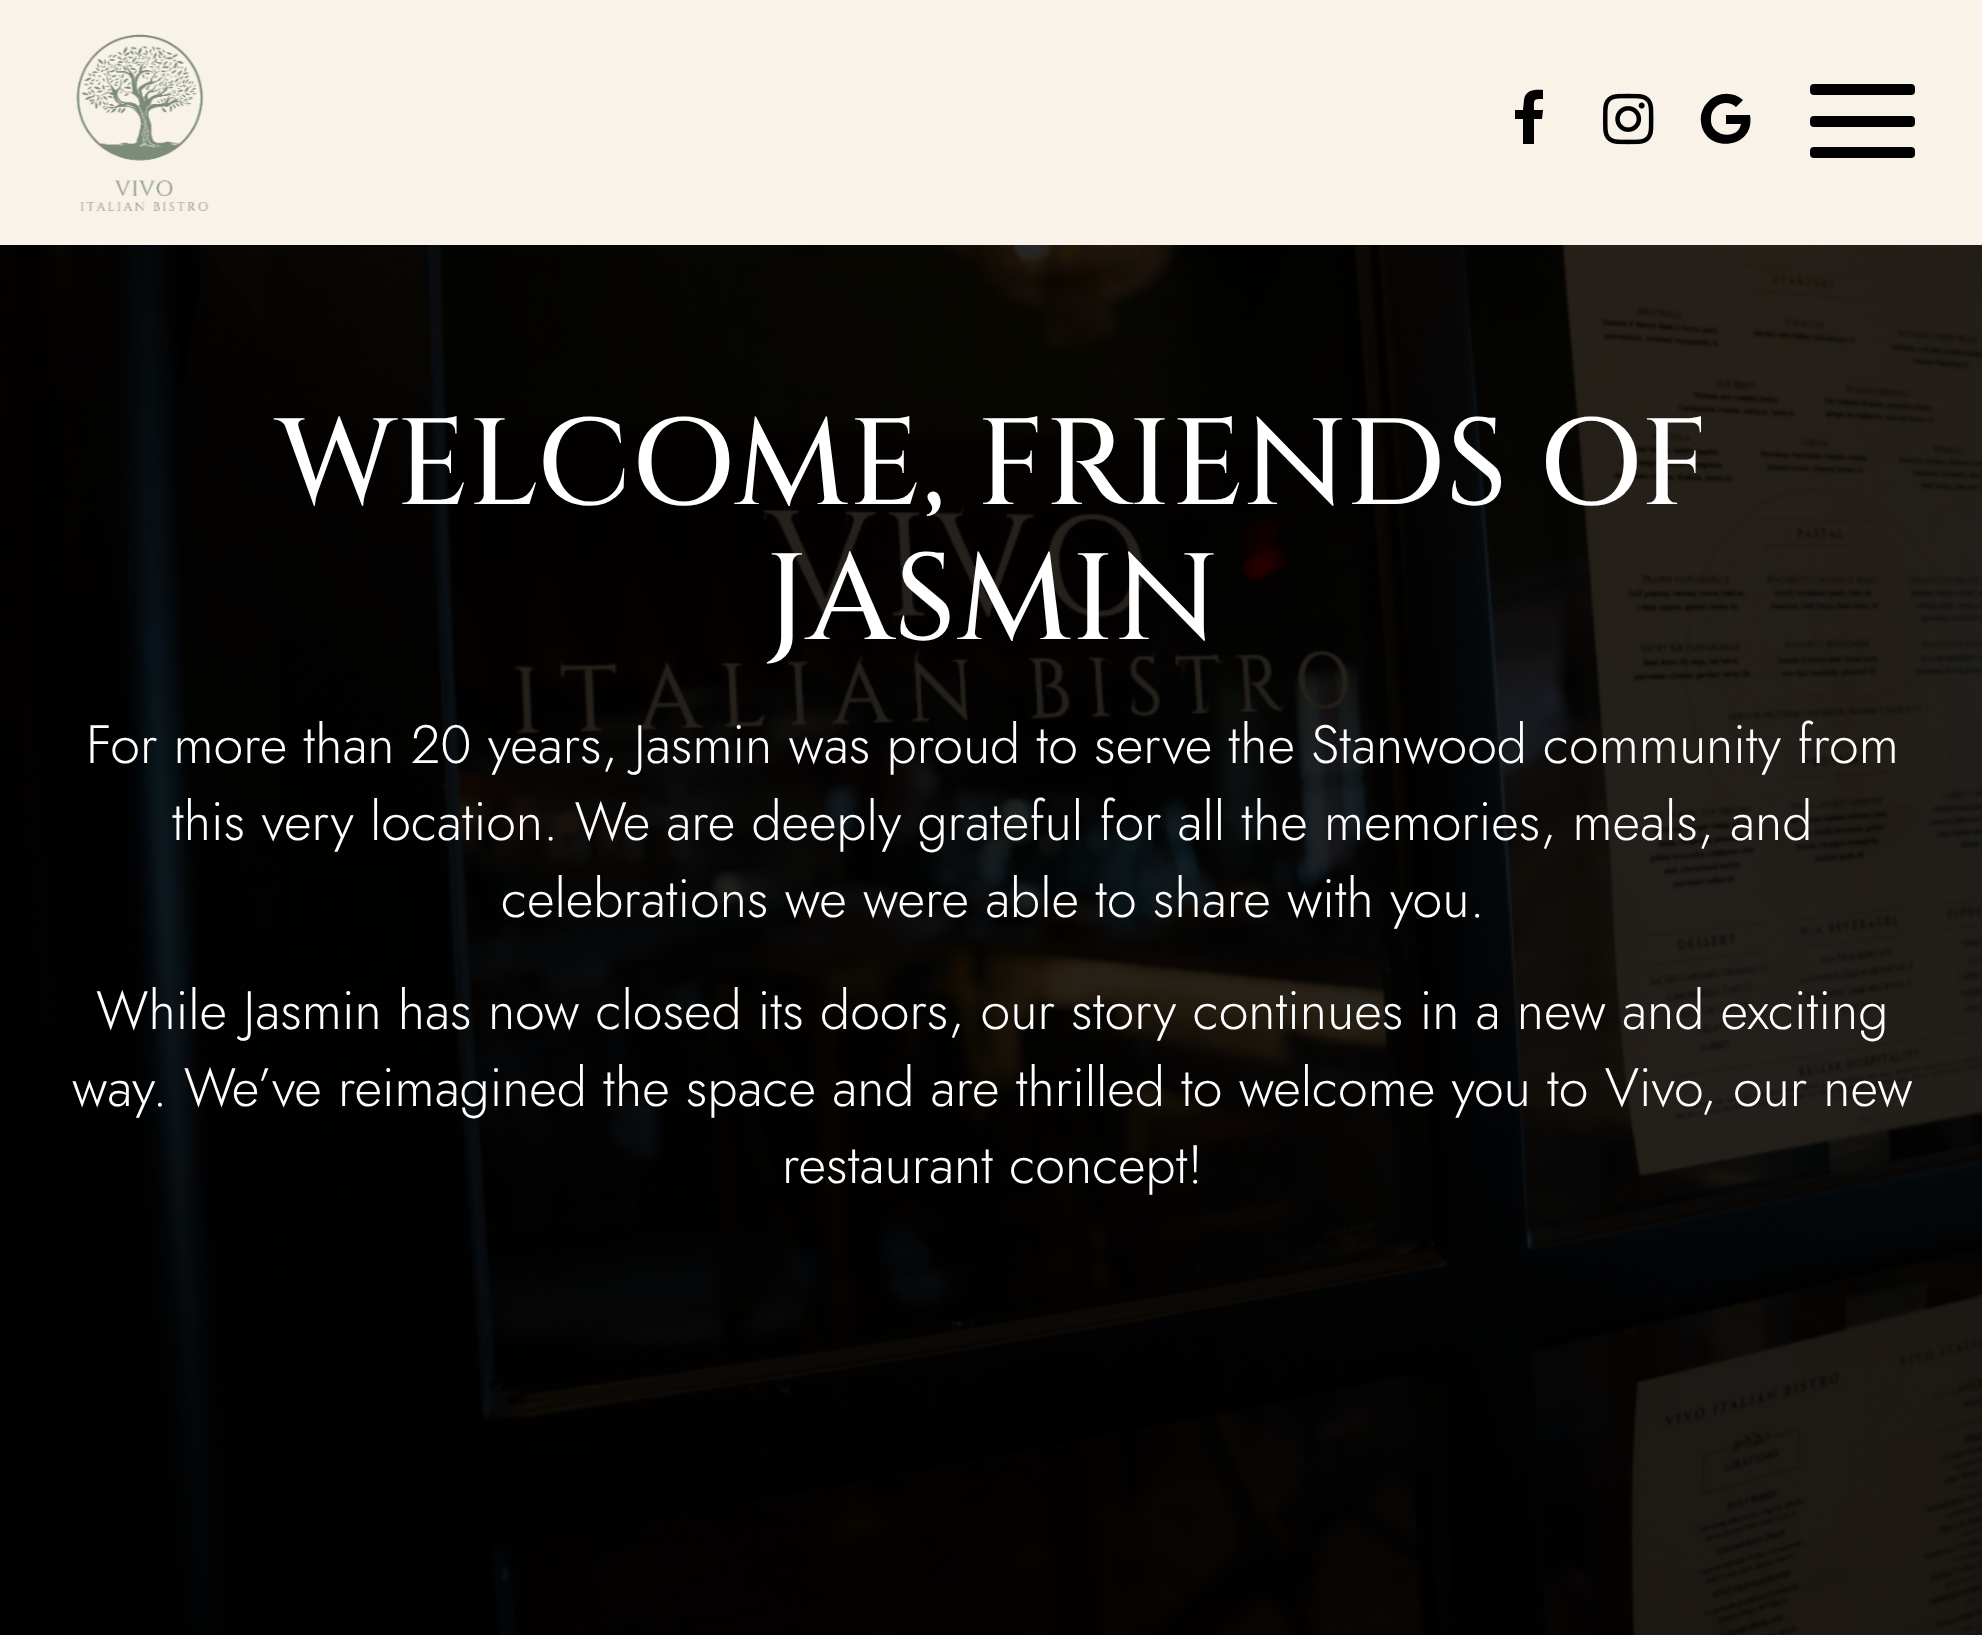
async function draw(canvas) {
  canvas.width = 1982;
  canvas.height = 1635;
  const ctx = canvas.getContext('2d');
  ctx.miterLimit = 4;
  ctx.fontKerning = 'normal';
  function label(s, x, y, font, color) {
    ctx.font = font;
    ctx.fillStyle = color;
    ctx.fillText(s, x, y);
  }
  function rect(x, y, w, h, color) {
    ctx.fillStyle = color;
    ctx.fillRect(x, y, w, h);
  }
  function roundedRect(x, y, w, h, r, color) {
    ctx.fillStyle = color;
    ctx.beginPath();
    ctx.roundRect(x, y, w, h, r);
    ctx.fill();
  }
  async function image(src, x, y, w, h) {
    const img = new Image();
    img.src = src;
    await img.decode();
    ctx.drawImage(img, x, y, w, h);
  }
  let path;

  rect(0, 0, 1982, 1635, '#000');
  await image('assets/img1.png', 0, 245, 1982, 1390);
  rect(0, 0, 1982, 245, '#f8f2e9');
  await image('assets/img2.png', 76, 34, 133, 177);
  ctx.fillStyle = '#000';
  path = new Path2D('M1543 90V99C1533 99 1534 99 1534 110H1543L1542 119H1534V144H1523V119H1515V110H1523L1524 100C1525 90 1535 89 1543 90Z');
  ctx.fill(path);
  await image('assets/img3.png', 1603, 93, 51, 52);
  path = new Path2D('M1726 115H1750C1756 150 1704 154 1701 122C1700 114 1703 107 1708 102C1717 92 1733 91 1743 100L1736 107C1731 102 1722 102 1717 106C1713 109 1711 113 1711 118C1709 137 1738 141 1741 124H1726Z');
  ctx.fill(path);
  roundedRect(1810, 84, 105, 11, 4, '#000');
  roundedRect(1810, 116, 105, 11, 4, '#000');
  roundedRect(1810, 147, 105, 11, 4, '#000');
  label('WELCOME, FRIENDS OF', 276, 504, '500 122.5px Cinzel', '#fff');
  label('JASMIN', 765, 639, '500 122.5px Cinzel', '#fff');
  label('For more than 20 years, Jasmin was proud to serve the Stanwood community from', 86, 763, '300 53.9px Jost', '#fff');
  label('this very location. We are deeply grateful for all the memories, meals, and', 172, 840, '300 53.9px Jost', '#fff');
  label('celebrations we were able to share with you.', 501, 917, '300 53.9px Jost', '#fff');
  label('While Jasmin has now closed its doors, our story continues in a new and exciting', 96, 1029, '300 53.9px Jost', '#fff');
  label('way. We’ve reimagined the space and are thrilled to welcome you to Vivo, our new', 72, 1106, '300 53.9px Jost', '#fff');
  label('restaurant concept!', 782, 1183, '300 53.9px Jost', '#fff');
}

draw(document.querySelector('canvas'));
